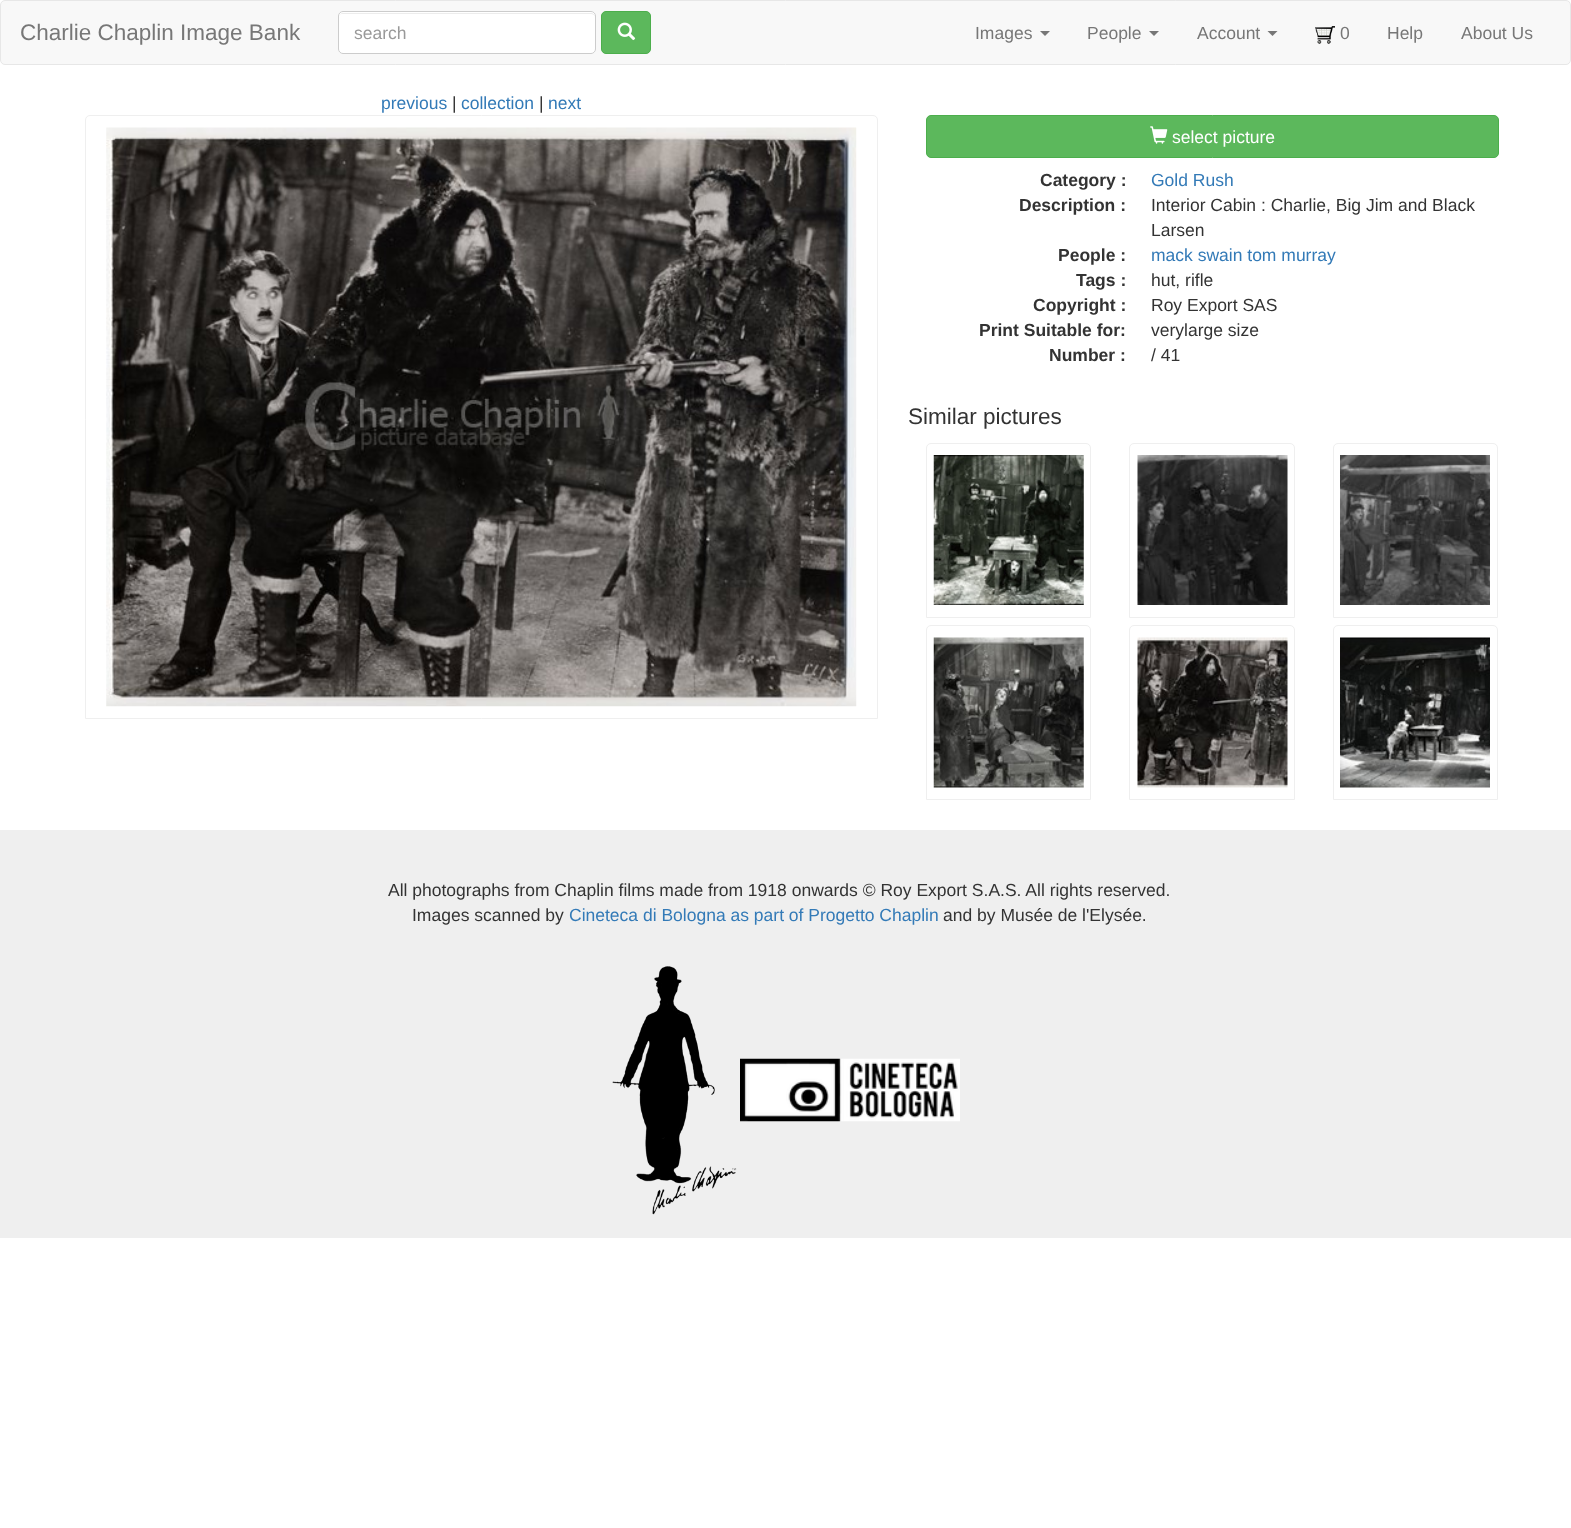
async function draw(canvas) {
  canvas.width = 1571;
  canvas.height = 1528;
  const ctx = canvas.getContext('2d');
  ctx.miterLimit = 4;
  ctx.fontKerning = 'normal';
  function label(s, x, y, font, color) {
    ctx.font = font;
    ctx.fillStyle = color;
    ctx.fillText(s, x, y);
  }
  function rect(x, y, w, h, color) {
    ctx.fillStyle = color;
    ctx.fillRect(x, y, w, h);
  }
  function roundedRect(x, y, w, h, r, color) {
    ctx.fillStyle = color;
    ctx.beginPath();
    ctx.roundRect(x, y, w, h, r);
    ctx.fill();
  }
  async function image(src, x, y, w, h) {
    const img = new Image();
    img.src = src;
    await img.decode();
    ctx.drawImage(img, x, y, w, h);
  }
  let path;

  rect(0, 0, 1571, 1528, '#fff');
  ctx.fillStyle = '#f8f8f8';
  ctx.beginPath();
  ctx.roundRect(0.5, 0.5, 1570, 64, 4.5);
  ctx.fill();
  ctx.strokeStyle = '#e7e7e7';
  ctx.stroke();
  label('Charlie Chaplin Image Bank', 20, 40, '22.5px Liberation Sans', '#777');
  roundedRect(338, 11, 258, 43, 5, '#fff');
  ctx.fillStyle = '#ececec';
  path = new Path2D('M342 14H591C593 14 595 15 595 18V17C595 15 593 13 591 13H343C341 13 339 15 339 17V18C339 15 340 14 342 14Z');
  ctx.fill(path);
  ctx.beginPath();
  ctx.roundRect(338.5, 11.5, 257, 42, 4.5);
  ctx.strokeStyle = '#ccc';
  ctx.stroke();
  label('search', 354, 39, '17.5px Liberation Sans', '#999');
  ctx.fillStyle = '#5cb85c';
  ctx.beginPath();
  ctx.roundRect(601.5, 11.5, 49, 42, 4.5);
  ctx.fill();
  ctx.strokeStyle = '#4cae4c';
  ctx.stroke();
  await image('assets/img1.png', 617, 22, 19, 19);
  label('Images', 975, 39, '17.5px Liberation Sans', '#777');
  path = new Path2D('M1040 31H1050L1045 36Z');
  ctx.fill(path);
  label('People', 1087, 39, '17.5px Liberation Sans', '#777');
  path = new Path2D('M1149 31H1159L1154 36Z');
  ctx.fill(path);
  label('Account', 1197, 39, '17.5px Liberation Sans', '#777');
  path = new Path2D('M1267.5 31H1277.5L1272.5 36Z');
  ctx.fill(path);
  await image('assets/img2.png', 1315, 26, 20, 18);
  label('0', 1340, 39, '17.5px Liberation Sans', '#777');
  label('Help', 1387, 39, '17.5px Liberation Sans', '#777');
  label('About Us', 1461, 39, '17.5px Liberation Sans', '#777');
  label('previous', 381, 109, '17.5px Liberation Sans', '#337ab7');
  label('|', 452, 109, '17.5px Liberation Sans', '#333');
  label('collection', 461, 109, '17.5px Liberation Sans', '#337ab7');
  label('|', 539, 109, '17.5px Liberation Sans', '#333');
  label('next', 548, 109, '17.5px Liberation Sans', '#337ab7');
  ctx.beginPath();
  ctx.roundRect(85.5, 115.5, 792, 603, [4.5, 4.5, 0, 0]);
  ctx.strokeStyle = '#efefef';
  ctx.stroke();
  await image('assets/img3.png', 106, 127, 751, 580);
  ctx.fillStyle = '#5cb85c';
  ctx.beginPath();
  ctx.roundRect(926.5, 115.5, 572, 42, 4.5);
  ctx.fill();
  ctx.strokeStyle = '#4cae4c';
  ctx.stroke();
  await image('assets/img4.png', 1150, 126, 18, 18);
  label('select picture', 1172, 143, '17.5px Liberation Sans', '#fff');
  label('Category :', 1040, 186, 'bold 17.5px Liberation Sans', '#333');
  label('Gold Rush', 1151, 186, '17.5px Liberation Sans', '#337ab7');
  label('Description :', 1019, 211, 'bold 17.5px Liberation Sans', '#333');
  label('Interior Cabin : Charlie, Big Jim and Black', 1151, 211, '17.5px Liberation Sans', '#333');
  label('Larsen', 1151, 236, '17.5px Liberation Sans', '#333');
  label('People :', 1058, 261, 'bold 17.5px Liberation Sans', '#333');
  label('mack swain tom murray', 1151, 261, '17.5px Liberation Sans', '#337ab7');
  label('Tags :', 1076, 286, 'bold 17.5px Liberation Sans', '#333');
  label('hut, rifle', 1151, 286, '17.5px Liberation Sans', '#333');
  label('Copyright :', 1033, 311, 'bold 17.5px Liberation Sans', '#333');
  label('Roy Export SAS', 1151, 311, '17.5px Liberation Sans', '#333');
  label('Print Suitable for:', 979, 336, 'bold 17.5px Liberation Sans', '#333');
  label('verylarge size', 1151, 336, '17.5px Liberation Sans', '#333');
  label('Number :', 1049, 361, 'bold 17.5px Liberation Sans', '#333');
  label('/ 41', 1151, 361, '17.5px Liberation Sans', '#333');
  label('Similar pictures', 908, 424, '22.5px Liberation Sans', '#333');
  ctx.beginPath();
  ctx.roundRect(926.5, 443.5, 164, 174, [4.5, 4.5, 0, 0]);
  ctx.strokeStyle = '#efefef';
  ctx.stroke();
  await image('assets/img5.png', 933, 455, 151, 150);
  ctx.beginPath();
  ctx.roundRect(1129.5, 443.5, 165, 174, [4.5, 4.5, 0, 0]);
  ctx.stroke();
  await image('assets/img6.png', 1137, 455, 151, 150);
  ctx.beginPath();
  ctx.roundRect(1333.5, 443.5, 164, 174, [4.5, 4.5, 0, 0]);
  ctx.stroke();
  await image('assets/img7.png', 1340, 455, 150, 150);
  ctx.beginPath();
  ctx.roundRect(926.5, 625.5, 164, 174, [4.5, 4.5, 0, 0]);
  ctx.stroke();
  await image('assets/img8.png', 933, 637, 151, 151);
  ctx.beginPath();
  ctx.roundRect(1129.5, 625.5, 165, 174, [4.5, 4.5, 0, 0]);
  ctx.stroke();
  await image('assets/img9.png', 1137, 637, 151, 151);
  ctx.beginPath();
  ctx.roundRect(1333.5, 625.5, 164, 174, [4.5, 4.5, 0, 0]);
  ctx.stroke();
  await image('assets/img10.png', 1340, 637, 150, 151);
  rect(0, 830, 1571, 408, '#efefef');
  label('All photographs from Chaplin films made from 1918 onwards © Roy Export S.A.S. All rights reserved.', 388, 896, '17.5px Liberation Sans', '#333');
  label('Images scanned by', 412, 921, '17.5px Liberation Sans', '#333');
  label('Cineteca di Bologna as part of Progetto Chaplin', 569, 921, '17.5px Liberation Sans', '#337ab7');
  label('and by Musée de l\'Elysée.', 943, 921, '17.5px Liberation Sans', '#333');
  await image('assets/img11.png', 612, 966, 125, 249);
  await image('assets/img12.png', 740, 1058, 220, 64);
}

draw(document.querySelector('canvas'));
